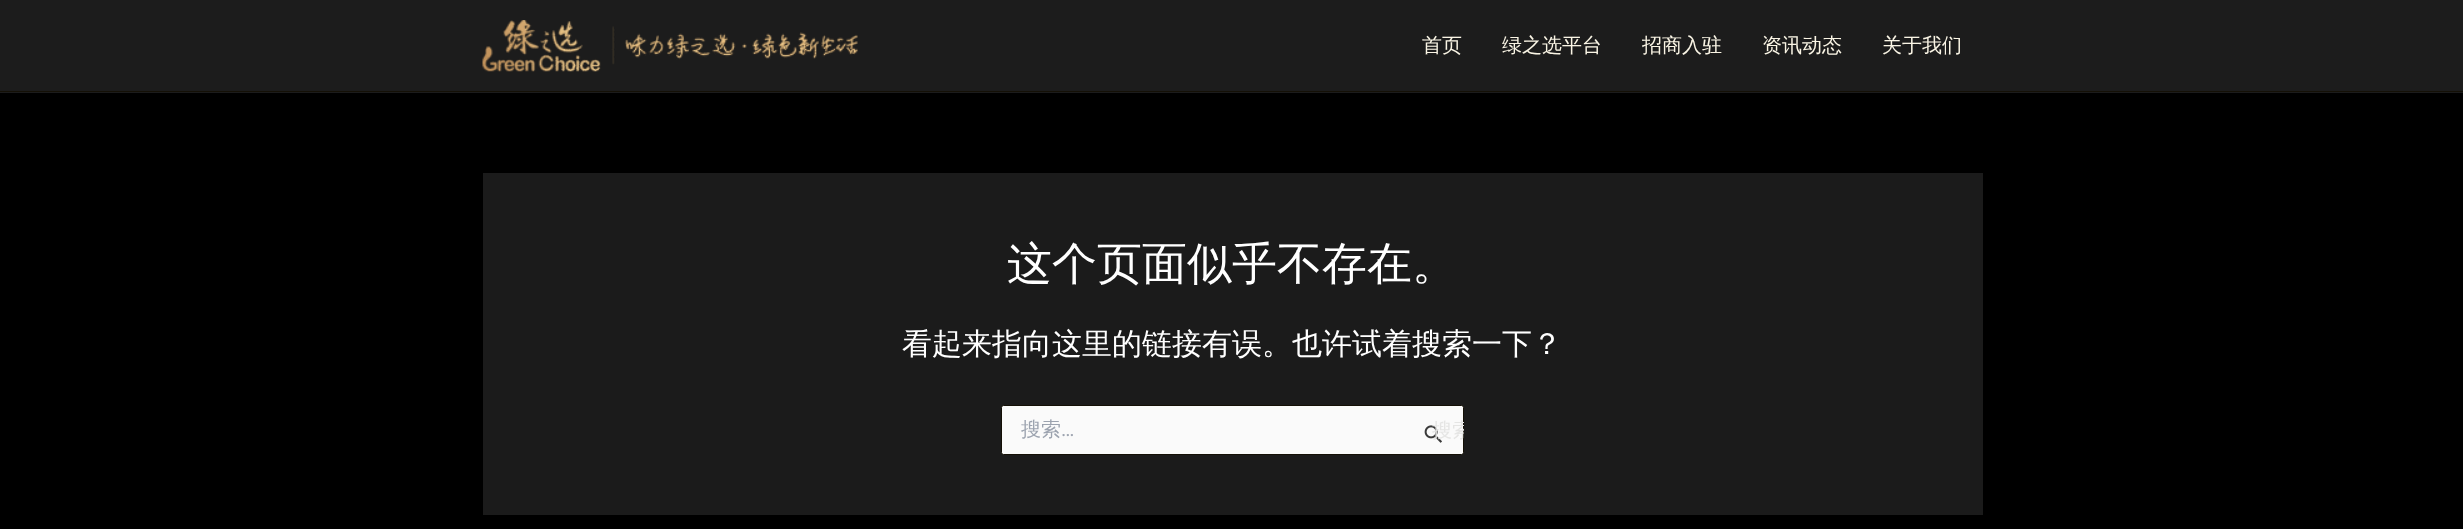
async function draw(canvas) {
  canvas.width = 2463;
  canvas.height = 529;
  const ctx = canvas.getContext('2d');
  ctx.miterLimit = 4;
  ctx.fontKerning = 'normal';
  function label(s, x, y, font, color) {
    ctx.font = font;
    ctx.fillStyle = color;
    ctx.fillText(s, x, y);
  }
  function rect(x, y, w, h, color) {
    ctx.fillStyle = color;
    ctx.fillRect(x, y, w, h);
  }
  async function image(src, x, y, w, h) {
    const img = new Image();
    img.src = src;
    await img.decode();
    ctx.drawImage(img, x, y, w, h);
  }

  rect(0, 0, 2463, 529, '#000');
  rect(0, 0, 2463, 93, '#1c1c1c');
  rect(0, 91, 2463, 1, '#141006');
  await image('assets/img1.png', 482, 20, 376, 52);
  label('首页', 1422, 52, '500 20px WenQuanYi Zen Hei', '#faf5e5');
  label('绿之选平台', 1502, 52, '500 20px WenQuanYi Zen Hei', '#faf5e5');
  label('招商入驻', 1642, 52, '500 20px WenQuanYi Zen Hei', '#faf5e5');
  label('资讯动态', 1762, 52, '500 20px WenQuanYi Zen Hei', '#faf5e5');
  label('关于我们', 1882, 52, '500 20px WenQuanYi Zen Hei', '#faf5e5');
  rect(483, 173, 1500, 342, '#1b1b1b');
  label('这个页面似乎不存在。', 1007, 279, '500 45px WenQuanYi Zen Hei', '#fff');
  label('看起来指向这里的链接有误。也许试着搜索一下？', 902, 354, '500 30px WenQuanYi Zen Hei', '#fff');
  ctx.fillStyle = '#fafafa';
  ctx.beginPath();
  ctx.roundRect(1001.5, 405.5, 462, 49, 2);
  ctx.fill();
  ctx.strokeStyle = '#141006';
  ctx.stroke();
  label('搜索', 1021, 436, '500 20px WenQuanYi Zen Hei', '#9ca3af');
  label('…', 1061, 436, '20px Roboto', '#9ca3af');
  await image('assets/img2.png', 1424, 425, 18, 18);
  ctx.save();
  ctx.beginPath();
  ctx.roundRect(1408, 405, 56, 53, 2.5);
  ctx.clip();
  label('搜索', 1432, 437, '500 20px WenQuanYi Zen Hei', '#e5e5e4');
  ctx.restore();
}

draw(document.querySelector('canvas'));
